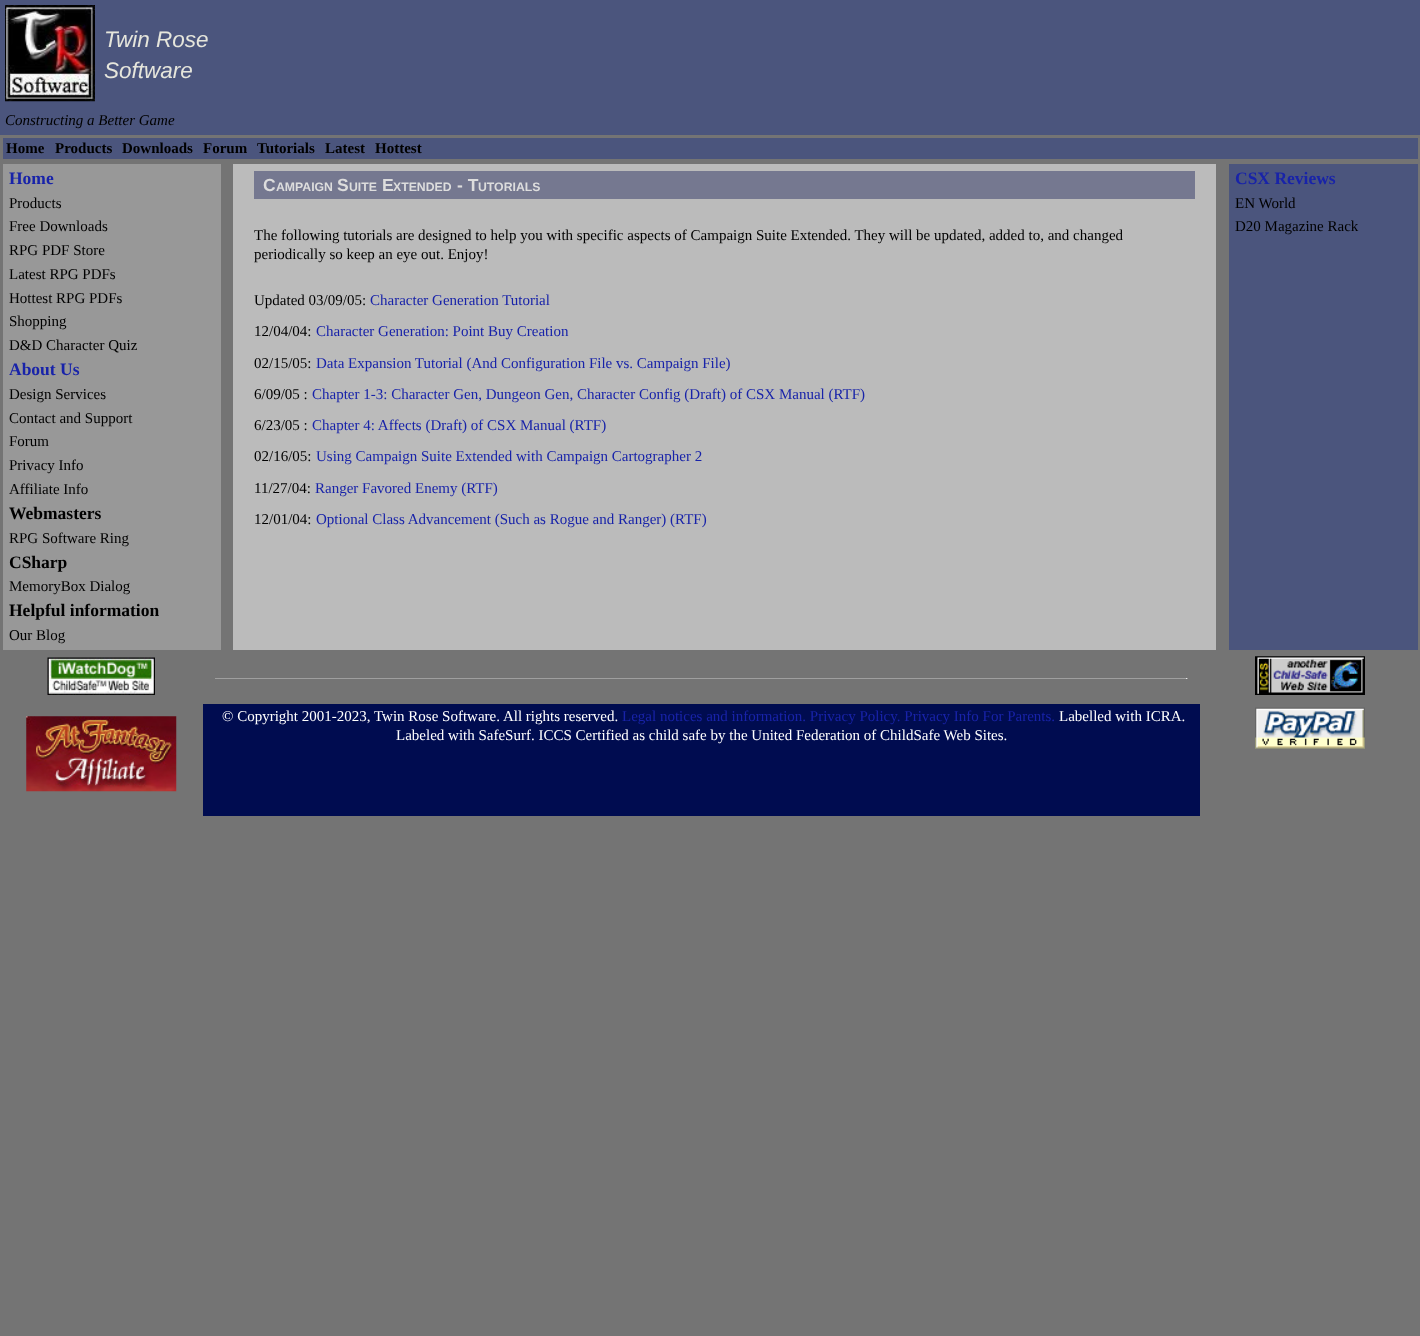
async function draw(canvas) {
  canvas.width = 1420;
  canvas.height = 1336;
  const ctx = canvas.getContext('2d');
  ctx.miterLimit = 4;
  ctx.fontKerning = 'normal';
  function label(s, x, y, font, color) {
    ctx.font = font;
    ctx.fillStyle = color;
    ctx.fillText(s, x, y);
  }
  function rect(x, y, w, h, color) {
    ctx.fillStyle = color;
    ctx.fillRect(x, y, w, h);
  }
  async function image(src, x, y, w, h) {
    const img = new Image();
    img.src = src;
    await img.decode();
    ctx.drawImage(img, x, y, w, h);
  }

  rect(0, 0, 1420, 1336, '#747474');
  rect(0, 0, 1420, 135, '#4b557d');
  await image('assets/img1.png', 5, 5, 90, 97);
  label('Twin Rose', 104, 47, 'italic 22.5px Liberation Sans', '#e6e6dc');
  label('Software', 104, 78, 'italic 22.5px Liberation Sans', '#e6e6dc');
  label('Constructing a Better Game', 5, 125, 'italic 15px Liberation Serif', '#000');
  rect(3, 138, 1415, 21, '#4b557d');
  label('Home', 6, 153, 'bold 15px Liberation Serif', '#000');
  label('Products', 55, 153, 'bold 15px Liberation Serif', '#000');
  label('Downloads', 122, 153, 'bold 15px Liberation Serif', '#000');
  label('Forum', 203, 153, 'bold 15px Liberation Serif', '#000');
  label('Tutorials', 257, 153, 'bold 15px Liberation Serif', '#000');
  label('Latest', 325, 153, 'bold 15px Liberation Serif', '#000');
  label('Hottest', 375, 153, 'bold 15px Liberation Serif', '#000');
  rect(3, 164, 218, 486, '#989898');
  label('Home', 9, 184, 'bold 17.5px Liberation Serif', '#1823a9');
  label('Products', 9, 208, '15px Liberation Serif', '#000');
  label('Free Downloads', 9, 231, '15px Liberation Serif', '#000');
  label('RPG PDF Store', 9, 255, '15px Liberation Serif', '#000');
  label('Latest RPG PDFs', 9, 279, '15px Liberation Serif', '#000');
  label('Hottest RPG PDFs', 9, 303, '15px Liberation Serif', '#000');
  label('Shopping', 9, 326, '15px Liberation Serif', '#000');
  label('D&D Character Quiz', 9, 350, '15px Liberation Serif', '#000');
  label('About Us', 9, 375, 'bold 17.5px Liberation Serif', '#1823a9');
  label('Design Services', 9, 399, '15px Liberation Serif', '#000');
  label('Contact and Support', 9, 423, '15px Liberation Serif', '#000');
  label('Forum', 9, 446, '15px Liberation Serif', '#000');
  label('Privacy Info', 9, 470, '15px Liberation Serif', '#000');
  label('Affiliate Info', 9, 494, '15px Liberation Serif', '#000');
  label('Webmasters', 9, 519, 'bold 17.5px Liberation Serif', '#000');
  label('RPG Software Ring', 9, 543, '15px Liberation Serif', '#000');
  label('CSharp', 9, 568, 'bold 17.5px Liberation Serif', '#000');
  label('MemoryBox Dialog', 9, 591, '15px Liberation Serif', '#000');
  label('Helpful information', 9, 616, 'bold 17.5px Liberation Serif', '#000');
  label('Our Blog', 9, 640, '15px Liberation Serif', '#000');
  rect(233, 164, 983, 486, '#bbb');
  rect(254, 171, 941, 28, '#757890');
  label('C', 263, 191, 'bold 17.5px Liberation Sans', '#ddd');
  label('AMPAIGN', 276, 191, 'bold 12.25px Liberation Sans', '#ddd');
  label('S', 337, 191, 'bold 17.5px Liberation Sans', '#ddd');
  label('UITE', 349, 191, 'bold 12.25px Liberation Sans', '#ddd');
  label('E', 382, 191, 'bold 17.5px Liberation Sans', '#ddd');
  label('XTENDED', 393, 191, 'bold 12.25px Liberation Sans', '#ddd');
  label('- T', 457, 191, 'bold 17.5px Liberation Sans', '#ddd');
  label('UTORIALS', 478, 191, 'bold 12.25px Liberation Sans', '#ddd');
  label('The following tutorials are designed to help you with specific aspects of Campaign Suite Extended. They will be updated, added to, and changed', 254, 240, '15px Liberation Serif', '#000');
  label('periodically so keep an eye out. Enjoy!', 254, 259, '15px Liberation Serif', '#000');
  label('Updated 03/09/05:', 254, 305, '15px Liberation Serif', '#000');
  label('Character Generation Tutorial', 370, 305, '15px Liberation Serif', '#1823a9');
  label('12/04/04:', 254, 336, '15px Liberation Serif', '#000');
  label('Character Generation: Point Buy Creation', 316, 336, '15px Liberation Serif', '#1823a9');
  label('02/15/05:', 254, 368, '15px Liberation Serif', '#000');
  label('Data Expansion Tutorial (And Configuration File vs. Campaign File)', 316, 368, '15px Liberation Serif', '#1823a9');
  label('6/09/05 :', 254, 399, '15px Liberation Serif', '#000');
  label('Chapter 1-3: Character Gen, Dungeon Gen, Character Config (Draft) of CSX Manual (RTF)', 312, 399, '15px Liberation Serif', '#1823a9');
  label('6/23/05 :', 254, 430, '15px Liberation Serif', '#000');
  label('Chapter 4: Affects (Draft) of CSX Manual (RTF)', 312, 430, '15px Liberation Serif', '#1823a9');
  label('02/16/05:', 254, 461, '15px Liberation Serif', '#000');
  label('Using Campaign Suite Extended with Campaign Cartographer 2', 316, 461, '15px Liberation Serif', '#1823a9');
  label('11/27/04:', 254, 493, '15px Liberation Serif', '#000');
  label('Ranger Favored Enemy (RTF)', 315, 493, '15px Liberation Serif', '#1823a9');
  label('12/01/04:', 254, 524, '15px Liberation Serif', '#000');
  label('Optional Class Advancement (Such as Rogue and Ranger) (RTF)', 316, 524, '15px Liberation Serif', '#1823a9');
  rect(1229, 164, 189, 486, '#4b557d');
  label('CSX Reviews', 1235, 184, 'bold 17.5px Liberation Serif', '#1823a9');
  label('EN World', 1235, 208, '15px Liberation Serif', '#000');
  label('D20 Magazine Rack', 1235, 231, '15px Liberation Serif', '#000');
  await image('assets/img2.png', 47, 657, 108, 38);
  rect(215, 678, 973, 1, '#9f9f9f');
  rect(1186, 678, 1, 1, '#eee');
  await image('assets/img3.png', 1255, 656, 110, 39);
  await image('assets/img4.png', 26, 716, 151, 76);
  rect(203, 704, 997, 112, '#000c50');
  label('© Copyright 2001-2023, Twin Rose Software. All rights reserved.', 222, 721, '15px Liberation Serif', '#fff');
  label('Legal notices and information. Privacy Policy. Privacy Info For Parents.', 622, 721, '15px Liberation Serif', '#1823a9');
  label('Labelled with ICRA.', 1059, 721, '15px Liberation Serif', '#fff');
  label('Labeled with SafeSurf. ICCS Certified as child safe by the United Federation of ChildSafe Web Sites.', 396, 740, '15px Liberation Serif', '#fff');
  await image('assets/img5.png', 1255, 707, 110, 42);
}

draw(document.querySelector('canvas'));
